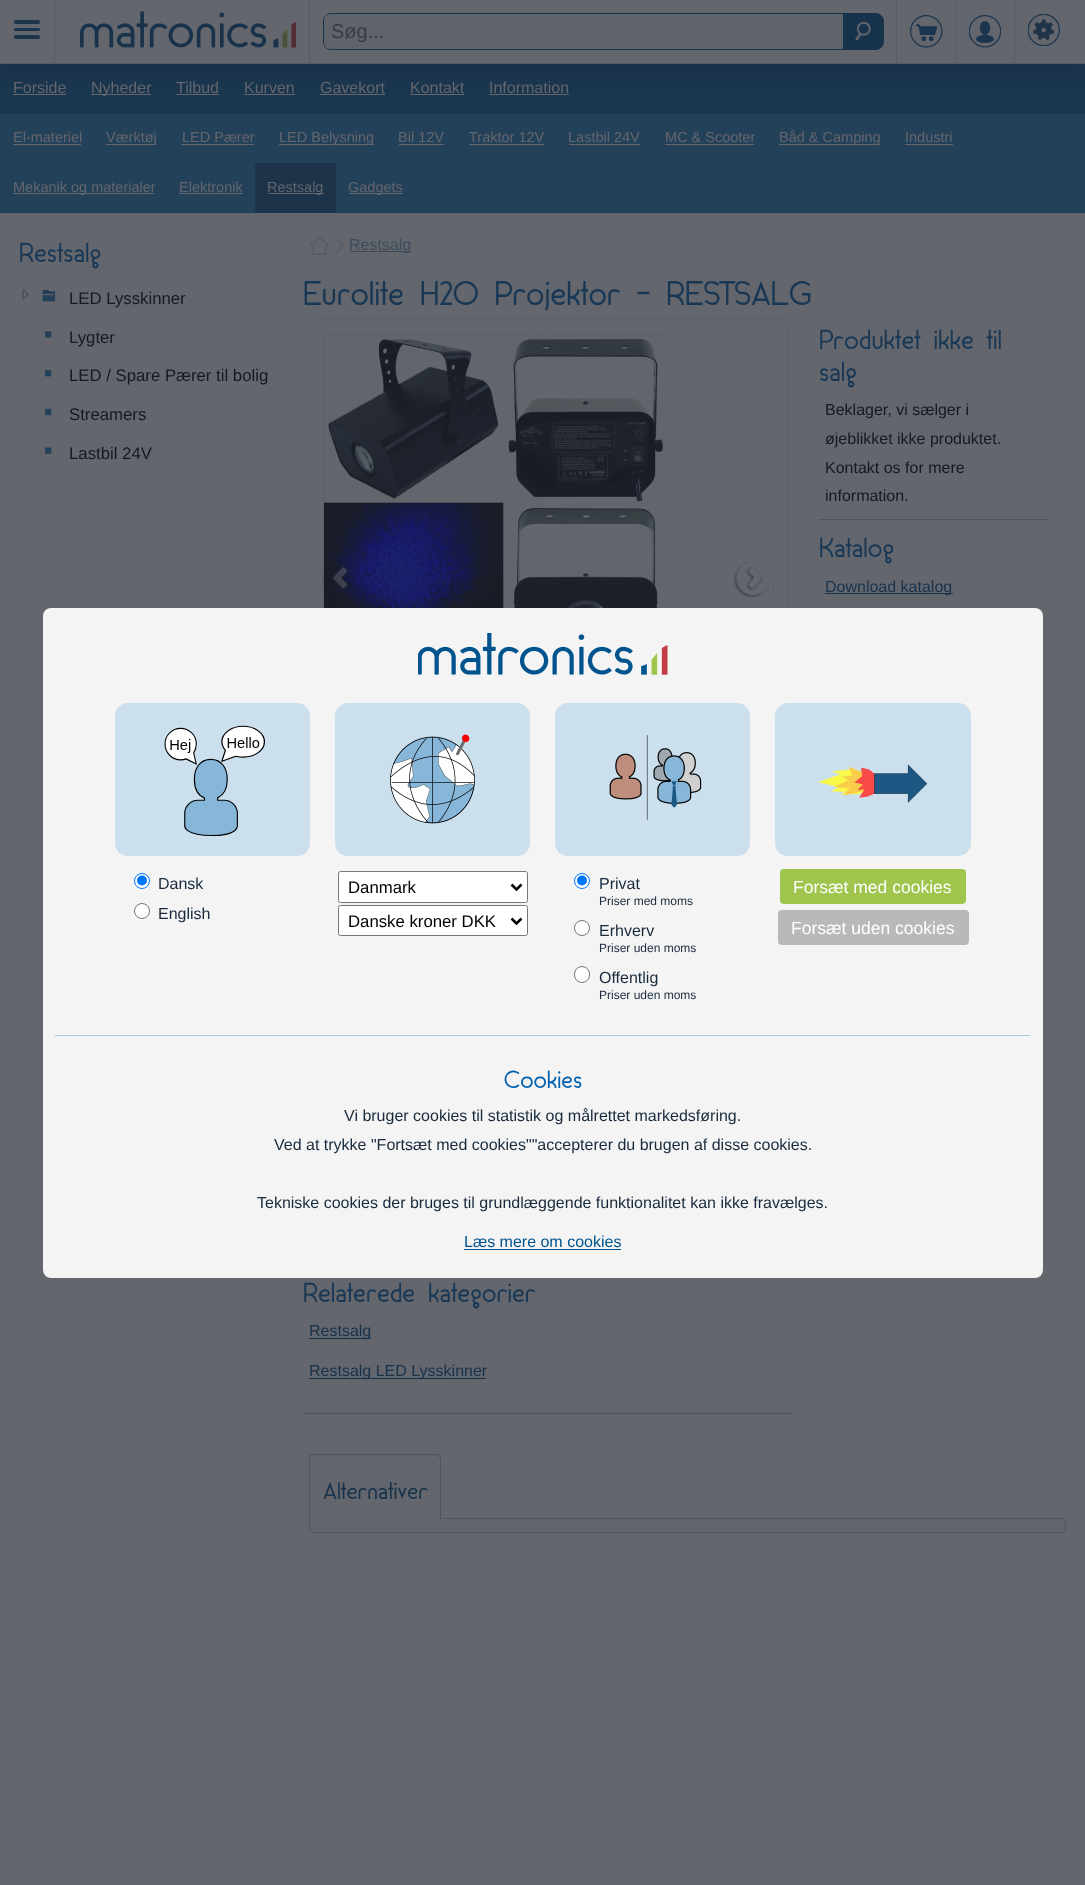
async function draw(canvas) {
  canvas.width = 1085;
  canvas.height = 1885;
  const ctx = canvas.getContext('2d');
  ctx.miterLimit = 4;
  ctx.fontKerning = 'normal';
  function label(s, x, y, font, color) {
    ctx.font = font;
    ctx.fillStyle = color;
    ctx.fillText(s, x, y);
  }
  function rect(x, y, w, h, color) {
    ctx.fillStyle = color;
    ctx.fillRect(x, y, w, h);
  }
  function roundedRect(x, y, w, h, r, color) {
    ctx.fillStyle = color;
    ctx.beginPath();
    ctx.roundRect(x, y, w, h, r);
    ctx.fill();
  }
  async function image(src, x, y, w, h) {
    const img = new Image();
    img.src = src;
    await img.decode();
    ctx.drawImage(img, x, y, w, h);
  }
  let path;

  rect(0, 0, 1085, 1885, '#64666d');
  rect(0, 64, 1085, 50, '#1b364f');
  rect(13, 94, 53, 1, '#64666d');
  rect(91, 94, 60, 1, '#64666d');
  rect(176, 94, 43, 1, '#64666d');
  rect(244, 94, 51, 1, '#64666d');
  rect(320, 94, 65, 1, '#64666d');
  rect(410, 94, 54, 1, '#64666d');
  rect(489, 94, 80, 1, '#64666d');
  ctx.fillStyle = '#17192033';
  ctx.filter = 'blur(11px)';
  ctx.beginPath();
  ctx.rect(0, 5, 1085, 64);
  ctx.fill();
  ctx.filter = 'none';
  rect(0, 0, 1085, 63, '#64666d');
  rect(0, 63, 1085, 1, '#595c63');
  rect(54, 0, 1, 63, '#595c63');
  roundedRect(14, 20, 26, 4, 2, '#1b354e');
  roundedRect(14, 28, 26, 3, 1.5, '#1b354e');
  roundedRect(14, 35, 26, 4, 2, '#1b354e');
  rect(309, 0, 1, 63, '#595c63');
  await image('assets/img1.png', 80, 11, 216, 37);
  ctx.fillStyle = '#17324b';
  ctx.beginPath();
  ctx.roundRect(323.5, 13.5, 560, 36, 7.5);
  ctx.fill();
  ctx.strokeStyle = '#17324b';
  ctx.stroke();
  ctx.fillStyle = '#61636a';
  ctx.beginPath();
  ctx.roundRect(324, 14, 519, 35, [6, 0, 0, 6]);
  ctx.fill();
  label('Søg...', 331, 38, '20px Liberation Sans', '#3a3c43');
  await image('assets/img2.png', 855, 21, 16, 20);
  rect(896, 0, 1, 63, '#595c63');
  await image('assets/img3.png', 910, 15, 33, 33);
  rect(955, 0, 1, 63, '#595c63');
  await image('assets/img4.png', 969, 15, 32, 33);
  rect(1014, 0, 1, 63, '#595c63');
  await image('assets/img5.png', 1028, 14, 32, 32);
  label('Forside', 13, 93, '16px Liberation Sans', '#64666d');
  label('Nyheder', 91, 93, '16px Liberation Sans', '#64666d');
  label('Tilbud', 176, 93, '16px Liberation Sans', '#64666d');
  label('Kurven', 244, 93, '16px Liberation Sans', '#64666d');
  label('Gavekort', 320, 93, '16px Liberation Sans', '#64666d');
  label('Kontakt', 410, 93, '16px Liberation Sans', '#64666d');
  label('Information', 489, 93, '16px Liberation Sans', '#64666d');
  rect(0, 114, 1085, 99, '#24415a');
  label('El-materiel', 13, 142, '14.5px Liberation Sans', '#64666d');
  rect(13, 144, 68, 1, '#64666d');
  rect(106, 144, 50, 1, '#64666d');
  label('Værktøj', 106, 142, '14.5px Liberation Sans', '#64666d');
  label('LED Pærer', 182, 142, '14.5px Liberation Sans', '#64666d');
  rect(181, 144, 73, 1, '#64666d');
  rect(279, 144, 95, 1, '#64666d');
  label('LED Belysning', 279, 142, '14.5px Liberation Sans', '#64666d');
  label('Bil 12V', 398, 142, '14.5px Liberation Sans', '#64666d');
  rect(399, 144, 45, 1, '#64666d');
  label('Traktor 12V', 469, 142, '14.5px Liberation Sans', '#64666d');
  rect(469, 144, 75, 1, '#64666d');
  label('Lastbil 24V', 568, 142, '14.5px Liberation Sans', '#64666d');
  rect(569, 144, 71, 1, '#64666d');
  label('MC & Scooter', 665, 142, '14.5px Liberation Sans', '#64666d');
  rect(665, 144, 89, 1, '#64666d');
  rect(779, 144, 101, 1, '#64666d');
  label('Båd & Camping', 779, 142, '14.5px Liberation Sans', '#64666d');
  label('Industri', 905, 142, '14.5px Liberation Sans', '#64666d');
  rect(905, 144, 48, 1, '#64666d');
  rect(13, 193, 141, 1, '#64666d');
  label('Mekanik og materialer', 13, 192, '14.5px Liberation Sans', '#64666d');
  label('Elektronik', 179, 192, '14.5px Liberation Sans', '#64666d');
  rect(179, 193, 64, 1, '#64666d');
  rect(255, 163, 81, 50, '#1c3349');
  rect(268, 193, 56, 1, '#64666d');
  label('Restsalg', 267, 192, '14.5px Liberation Sans', '#64666d');
  rect(349, 193, 54, 1, '#64666d');
  label('Gadgets', 348, 192, '14.5px Liberation Sans', '#64666d');
  label('Restsalg', 19, 262, '32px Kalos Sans', '#173755');
  await image('assets/img6.png', 22, 288, 7, 12);
  await image('assets/img7.png', 42, 289, 14, 13);
  label('LED Lysskinner', 69, 304, '16.75px Liberation Sans', '#171920');
  await image('assets/img8.png', 44, 331, 8, 7);
  label('Lygter', 69, 343, '16.75px Liberation Sans', '#171920');
  await image('assets/img9.png', 44, 369, 8, 8);
  label('LED / Spare Pærer til bolig', 69, 381, '16.75px Liberation Sans', '#171920');
  await image('assets/img10.png', 44, 408, 8, 8);
  label('Streamers', 69, 420, '16.75px Liberation Sans', '#171920');
  await image('assets/img11.png', 44, 447, 8, 7);
  label('Lastbil 24V', 69, 459, '16.75px Liberation Sans', '#171920');
  await image('assets/img12.png', 310, 236, 19, 19);
  await image('assets/img13.png', 336, 238, 8, 15);
  rect(350, 251, 61, 1, '#3e4c5c');
  label('Restsalg', 349, 250, '16px Liberation Sans', '#3e4c5c');
  label('Eurolite H2O Projektor - RESTSALG', 303, 305, '40px Kalos Sans', '#173755');
  label('Produktet ikke til', 819, 349, '32px Kalos Sans', '#173755');
  label('salg', 819, 381, '32px Kalos Sans', '#173755');
  label('Beklager, vi sælger i', 825, 415, '16px Liberation Sans', '#171920');
  label('øjeblikket ikke produktet.', 825, 444, '16px Liberation Sans', '#171920');
  label('Kontakt os for mere', 825, 473, '16px Liberation Sans', '#171920');
  label('information.', 825, 501, '16px Liberation Sans', '#171920');
  rect(819, 519, 229, 1, '#4c5561');
  label('Katalog', 819, 557, '32px Kalos Sans', '#173755');
  rect(825, 593, 128, 1, '#17324b');
  label('Download katalog', 825, 592, '16px Liberation Sans', '#17324b');
  ctx.beginPath();
  ctx.roundRect(309.5, 319.5, 478, 519, 5.5);
  ctx.strokeStyle = '#5f6168';
  ctx.stroke();
  ctx.beginPath();
  ctx.roundRect(323.5, 333.5, 450, 339, 5.5);
  ctx.stroke();
  await image('assets/img14.png', 324, 334, 341, 274);
  await image('assets/img15.png', 322, 566, 37, 31);
  await image('assets/img16.png', 733, 561, 37, 37);
  label('Relaterede kategorier', 303, 1302, '32px Kalos Sans', '#173755');
  rect(309, 1338, 62, 1, '#17324b');
  label('Restsalg', 309, 1336, '16px Liberation Sans', '#17324b');
  rect(309, 1378, 177, 1, '#17324b');
  label('Restsalg LED Lysskinner', 309, 1376, '16px Liberation Sans', '#17324b');
  rect(303, 1413, 491, 1, '#4c5561');
  ctx.beginPath();
  ctx.roundRect(309.5, 1518.5, 756, 14, [0, 4.5, 4.5, 4.5]);
  ctx.strokeStyle = '#4c5561';
  ctx.stroke();
  ctx.fillStyle = '#64666d';
  ctx.beginPath();
  ctx.roundRect(309, 1454, 132, 65, [5, 5, 0, 0]);
  ctx.fill();
  ctx.fillStyle = '#4c5561';
  path = new Path2D('M314 1454H436C439 1454 441 1456 441 1459V1519H309V1459C309 1456 311 1454 314 1454ZM314 1455H436C438 1455 440 1457 440 1459V1519H310V1459C310 1457 312 1455 314 1455Z');
  ctx.fill(path, 'evenodd');
  label('Alternativer', 323, 1499, '28px Kalos Sans', '#17324b');
  roundedRect(43, 608, 1000, 670, 8, '#f4f4f4');
  await image('assets/img17.png', 418, 633, 250, 42);
  roundedRect(115, 703, 195, 153, 13, '#cbdfed');
  await image('assets/img18.png', 164, 725, 101, 111);
  ctx.fillStyle = '#fff';
  ctx.beginPath();
  ctx.arc(142, 881, 7.5, 0, 2 * Math.PI);
  ctx.fill();
  ctx.strokeStyle = '#0075ff';
  ctx.stroke();
  ctx.fillStyle = '#0075ff';
  ctx.beginPath();
  ctx.arc(142, 880.5, 5, 0, 2 * Math.PI);
  ctx.fill();
  label('Dansk', 158, 889, '16px Liberation Sans', '#182a3c');
  ctx.fillStyle = '#fff';
  ctx.beginPath();
  ctx.arc(142, 911, 7.5, 0, 2 * Math.PI);
  ctx.fill();
  ctx.strokeStyle = '#767676';
  ctx.stroke();
  label('English', 158, 919, '16px Liberation Sans', '#182a3c');
  roundedRect(335, 703, 195, 153, 13, '#cbdfed');
  await image('assets/img19.png', 390, 734, 85, 90);
  ctx.fillStyle = '#fff';
  ctx.beginPath();
  ctx.roundRect(338.5, 871.5, 189, 31, 2);
  ctx.fill();
  ctx.stroke();
  path = new Path2D('M511.5 884.5L516.5 889.5L521.5 884.5');
  ctx.strokeStyle = '#000';
  ctx.lineWidth = 2.5;
  ctx.stroke(path);
  label('Danmark', 348, 893, '16.75px Liberation Sans', '#000');
  ctx.fillStyle = '#fff';
  ctx.beginPath();
  ctx.roundRect(338.5, 905.5, 189, 30, 2);
  ctx.fill();
  ctx.strokeStyle = '#767676';
  ctx.lineWidth = 1;
  ctx.stroke();
  path = new Path2D('M511.5 918.5L516.5 923.5L521.5 918.5');
  ctx.strokeStyle = '#000';
  ctx.lineWidth = 2.5;
  ctx.stroke(path);
  label('Danske kroner DKK', 348, 927, '16.75px Liberation Sans', '#000');
  roundedRect(555, 703, 195, 153, 13, '#cbdfed');
  await image('assets/img20.png', 609, 735, 93, 85);
  ctx.fillStyle = '#fff';
  ctx.beginPath();
  ctx.arc(582, 881, 7.5, 0, 2 * Math.PI);
  ctx.fill();
  ctx.strokeStyle = '#0075ff';
  ctx.lineWidth = 1;
  ctx.stroke();
  ctx.fillStyle = '#0075ff';
  ctx.beginPath();
  ctx.arc(582, 880.5, 5, 0, 2 * Math.PI);
  ctx.fill();
  label('Privat', 599, 889, '16px Liberation Sans', '#182a3c');
  label('Priser med moms', 599, 905, '12px Liberation Sans', '#182a3c');
  ctx.fillStyle = '#fff';
  ctx.beginPath();
  ctx.arc(582, 928, 7.5, 0, 2 * Math.PI);
  ctx.fill();
  ctx.strokeStyle = '#767676';
  ctx.stroke();
  label('Erhverv', 599, 936, '16px Liberation Sans', '#182a3c');
  label('Priser uden moms', 599, 952, '12px Liberation Sans', '#182a3c');
  ctx.fillStyle = '#fff';
  ctx.beginPath();
  ctx.roundRect(574.5, 966.5, 15, 16, 7.5);
  ctx.fill();
  ctx.stroke();
  label('Offentlig', 599, 983, '16px Liberation Sans', '#182a3c');
  label('Priser uden moms', 599, 999, '12px Liberation Sans', '#182a3c');
  roundedRect(775, 703, 196, 153, 13, '#cbdfed');
  await image('assets/img21.png', 818, 764, 109, 39);
  roundedRect(780, 869, 186, 35, 4, '#9fc54d');
  label('Forsæt med cookies', 793, 893, '17.5px Liberation Sans', '#fff');
  roundedRect(778, 910, 191, 35, 4, '#b9b9b9');
  label('Forsæt uden cookies', 791, 934, '17.5px Liberation Sans', '#fff');
  rect(55, 1035, 975, 1, '#afc8d9');
  label('Cookies', 504, 1088, '29px Kalos Sans', '#0062b0');
  label('Vi bruger cookies til statistik og målrettet markedsføring.', 344, 1121, '16px Liberation Sans', '#182a3c');
  label('Ved at trykke "Fortsæt med cookies""accepterer du brugen af disse cookies.', 274, 1150, '16px Liberation Sans', '#182a3c');
  label('Tekniske cookies der bruges til grundlæggende funktionalitet kan ikke fravælges.', 257, 1208, '16px Liberation Sans', '#182a3c');
  label('Læs mere om cookies', 464, 1247, '16px Liberation Sans', '#00538d');
  rect(464, 1249, 157, 1, '#00538d');
}

draw(document.querySelector('canvas'));
